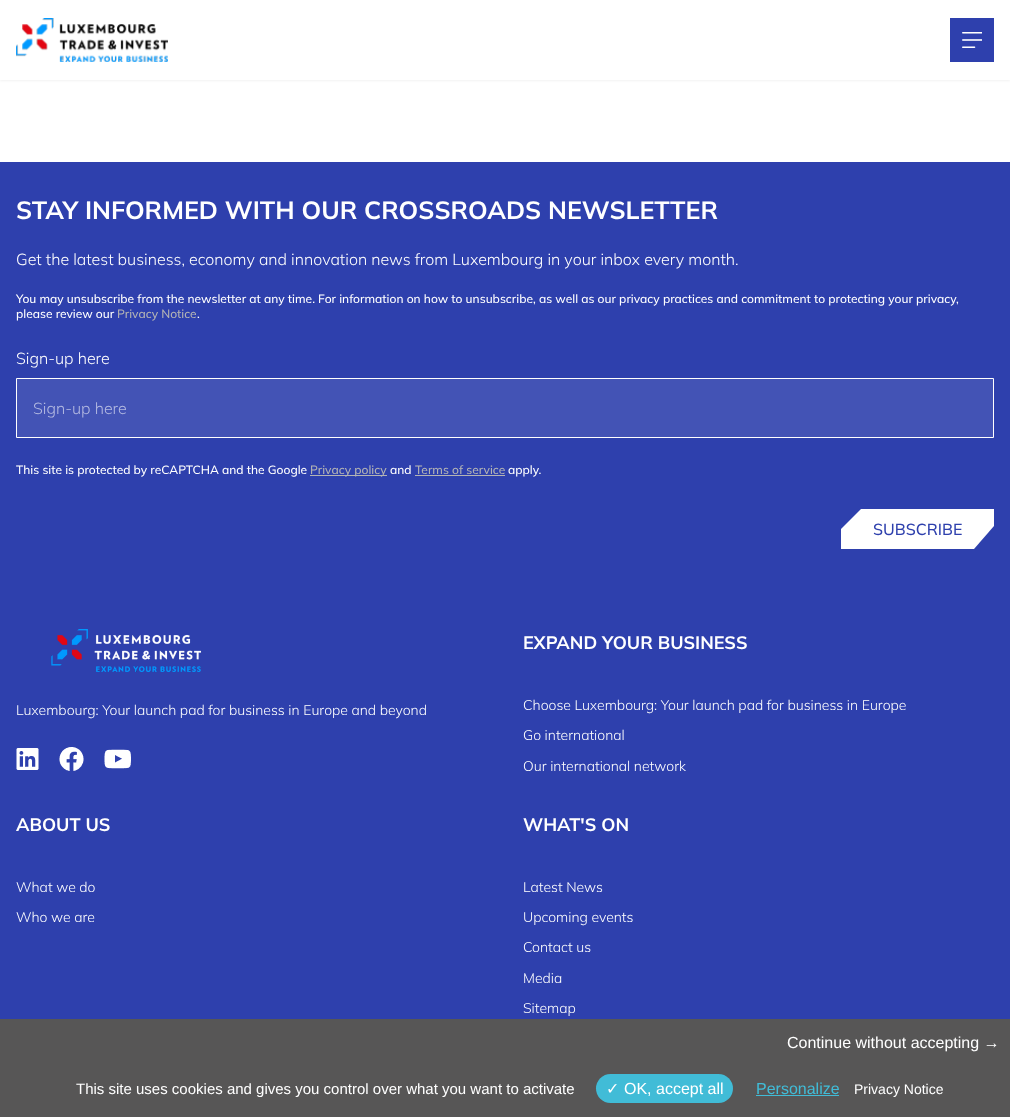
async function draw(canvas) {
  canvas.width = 1010;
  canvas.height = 1117;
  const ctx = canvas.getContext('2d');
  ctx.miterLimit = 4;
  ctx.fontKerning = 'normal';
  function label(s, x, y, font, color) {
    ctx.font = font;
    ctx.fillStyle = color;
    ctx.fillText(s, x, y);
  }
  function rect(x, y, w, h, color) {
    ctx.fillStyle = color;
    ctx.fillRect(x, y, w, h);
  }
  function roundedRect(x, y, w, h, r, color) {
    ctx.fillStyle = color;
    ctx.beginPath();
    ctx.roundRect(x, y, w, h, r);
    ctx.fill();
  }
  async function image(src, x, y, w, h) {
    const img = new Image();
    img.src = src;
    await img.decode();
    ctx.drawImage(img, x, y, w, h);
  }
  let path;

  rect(0, 0, 1010, 1117, '#fff');
  ctx.fillStyle = '#0000000d';
  ctx.filter = 'blur(1px)';
  ctx.beginPath();
  ctx.rect(0, 1, 1010, 80);
  ctx.fill();
  ctx.filter = 'none';
  rect(0, 0, 1010, 80, '#fff');
  await image('assets/img1.png', 16, 18, 152, 44);
  rect(950, 18, 44, 44, '#2e40ad');
  await image('assets/img2.png', 962, 32, 20, 16);
  rect(0, 162, 1010, 857, '#2e40ad');
  label('STAY INFORMED WITH OUR CROSSROADS NEWSLETTER', 16, 219, 'bold 25px Mulish', '#fff');
  label('Get the latest business, economy and innovation news from Luxembourg in your inbox every month.', 16, 265, '300 16px Mulish', '#fff');
  label('You may unsubscribe from the newsletter at any time. For information on how to unsubscribe, as well as our privacy practices and commitment to protecting your privacy,', 16, 303, '500 12px Mulish', '#fff');
  label('please review our', 16, 318, '500 12px Mulish', '#fff');
  label('Privacy Notice', 117, 318, '500 12px Mulish', '#b4b4b4');
  label('.', 197, 318, '500 12px Mulish', '#fff');
  label('Sign-up here', 16, 364, '300 16px Mulish', '#fff');
  ctx.fillStyle = '#4353b5';
  ctx.beginPath();
  ctx.rect(16.5, 378.5, 977, 59);
  ctx.fill();
  ctx.strokeStyle = '#fff';
  ctx.stroke();
  label('Sign-up here', 33, 414, '300 16px Mulish', '#b4bae1');
  label('This site is protected by reCAPTCHA and the Google', 16, 474, '500 12px Mulish', '#fff');
  rect(310, 475, 77, 1, '#b4b4b4');
  label('Privacy policy', 310, 474, '500 12px Mulish', '#b4b4b4');
  label('and', 390, 474, '500 12px Mulish', '#fff');
  label('Terms of service', 415, 474, '500 12px Mulish', '#b4b4b4');
  rect(415, 475, 90, 1, '#b4b4b4');
  label('apply.', 508, 474, '500 12px Mulish', '#fff');
  path = new Path2D('M974 549H841V529L861 509H994V526Z');
  ctx.fill(path);
  label('SUBSCRIBE', 873, 535, '500 16px Mulish', '#2e40ad');
  await image('assets/img3.png', 51, 629, 151, 43);
  label('Luxembourg: Your launch pad for business in Europe and beyond', 16, 715, '300 14px Mulish', '#fff');
  await image('assets/img4.png', 16, 748, 23, 22);
  await image('assets/img5.png', 59, 747, 25, 24);
  await image('assets/img6.png', 104, 749, 27, 20);
  label('EXPAND YOUR BUSINESS', 523, 649, 'bold 18px Mulish', '#fff');
  label('Choose Luxembourg: Your launch pad for business in Europe', 523, 710, '300 14px Mulish', '#fff');
  label('Go international', 523, 740, '300 14px Mulish', '#fff');
  label('Our international network', 523, 771, '300 14px Mulish', '#fff');
  label('ABOUT US', 16, 831, 'bold 18px Mulish', '#fff');
  label('What we do', 16, 892, '300 14px Mulish', '#fff');
  label('Who we are', 16, 922, '300 14px Mulish', '#fff');
  label('WHAT\'S ON', 523, 831, 'bold 18px Mulish', '#fff');
  label('Latest News', 523, 892, '300 14px Mulish', '#fff');
  label('Upcoming events', 523, 922, '300 14px Mulish', '#fff');
  label('Contact us', 523, 952, '300 14px Mulish', '#fff');
  label('Media', 523, 983, '300 14px Mulish', '#fff');
  label('Sitemap', 523, 1013, '300 14px Mulish', '#fff');
  rect(0, 1019, 1010, 98, '#575656');
  label('Continue without accepting →', 787, 1048, '16px Liberation Sans', '#fff');
  ctx.save();
  ctx.beginPath();
  ctx.rect(66, 1080, 519, 17);
  ctx.clip();
  label('This site uses cookies and gives you control over what you want to activate', 76, 1094, '15px Liberation Sans', '#fff');
  ctx.restore();
  roundedRect(596, 1074, 137, 29, 14.5, '#41bcd7');
  label('✓', 606, 1094, '16px DejaVu Sans', '#fff');
  label('OK, accept all', 624, 1094, '16px Liberation Sans', '#fff');
  label('Personalize', 756, 1094, '16px Liberation Sans', '#41bcd7');
  rect(756, 1095, 83, 1, '#41bcd7');
  label('Privacy Notice', 854, 1094, '14px Liberation Sans', '#fff');
}

draw(document.querySelector('canvas'));
